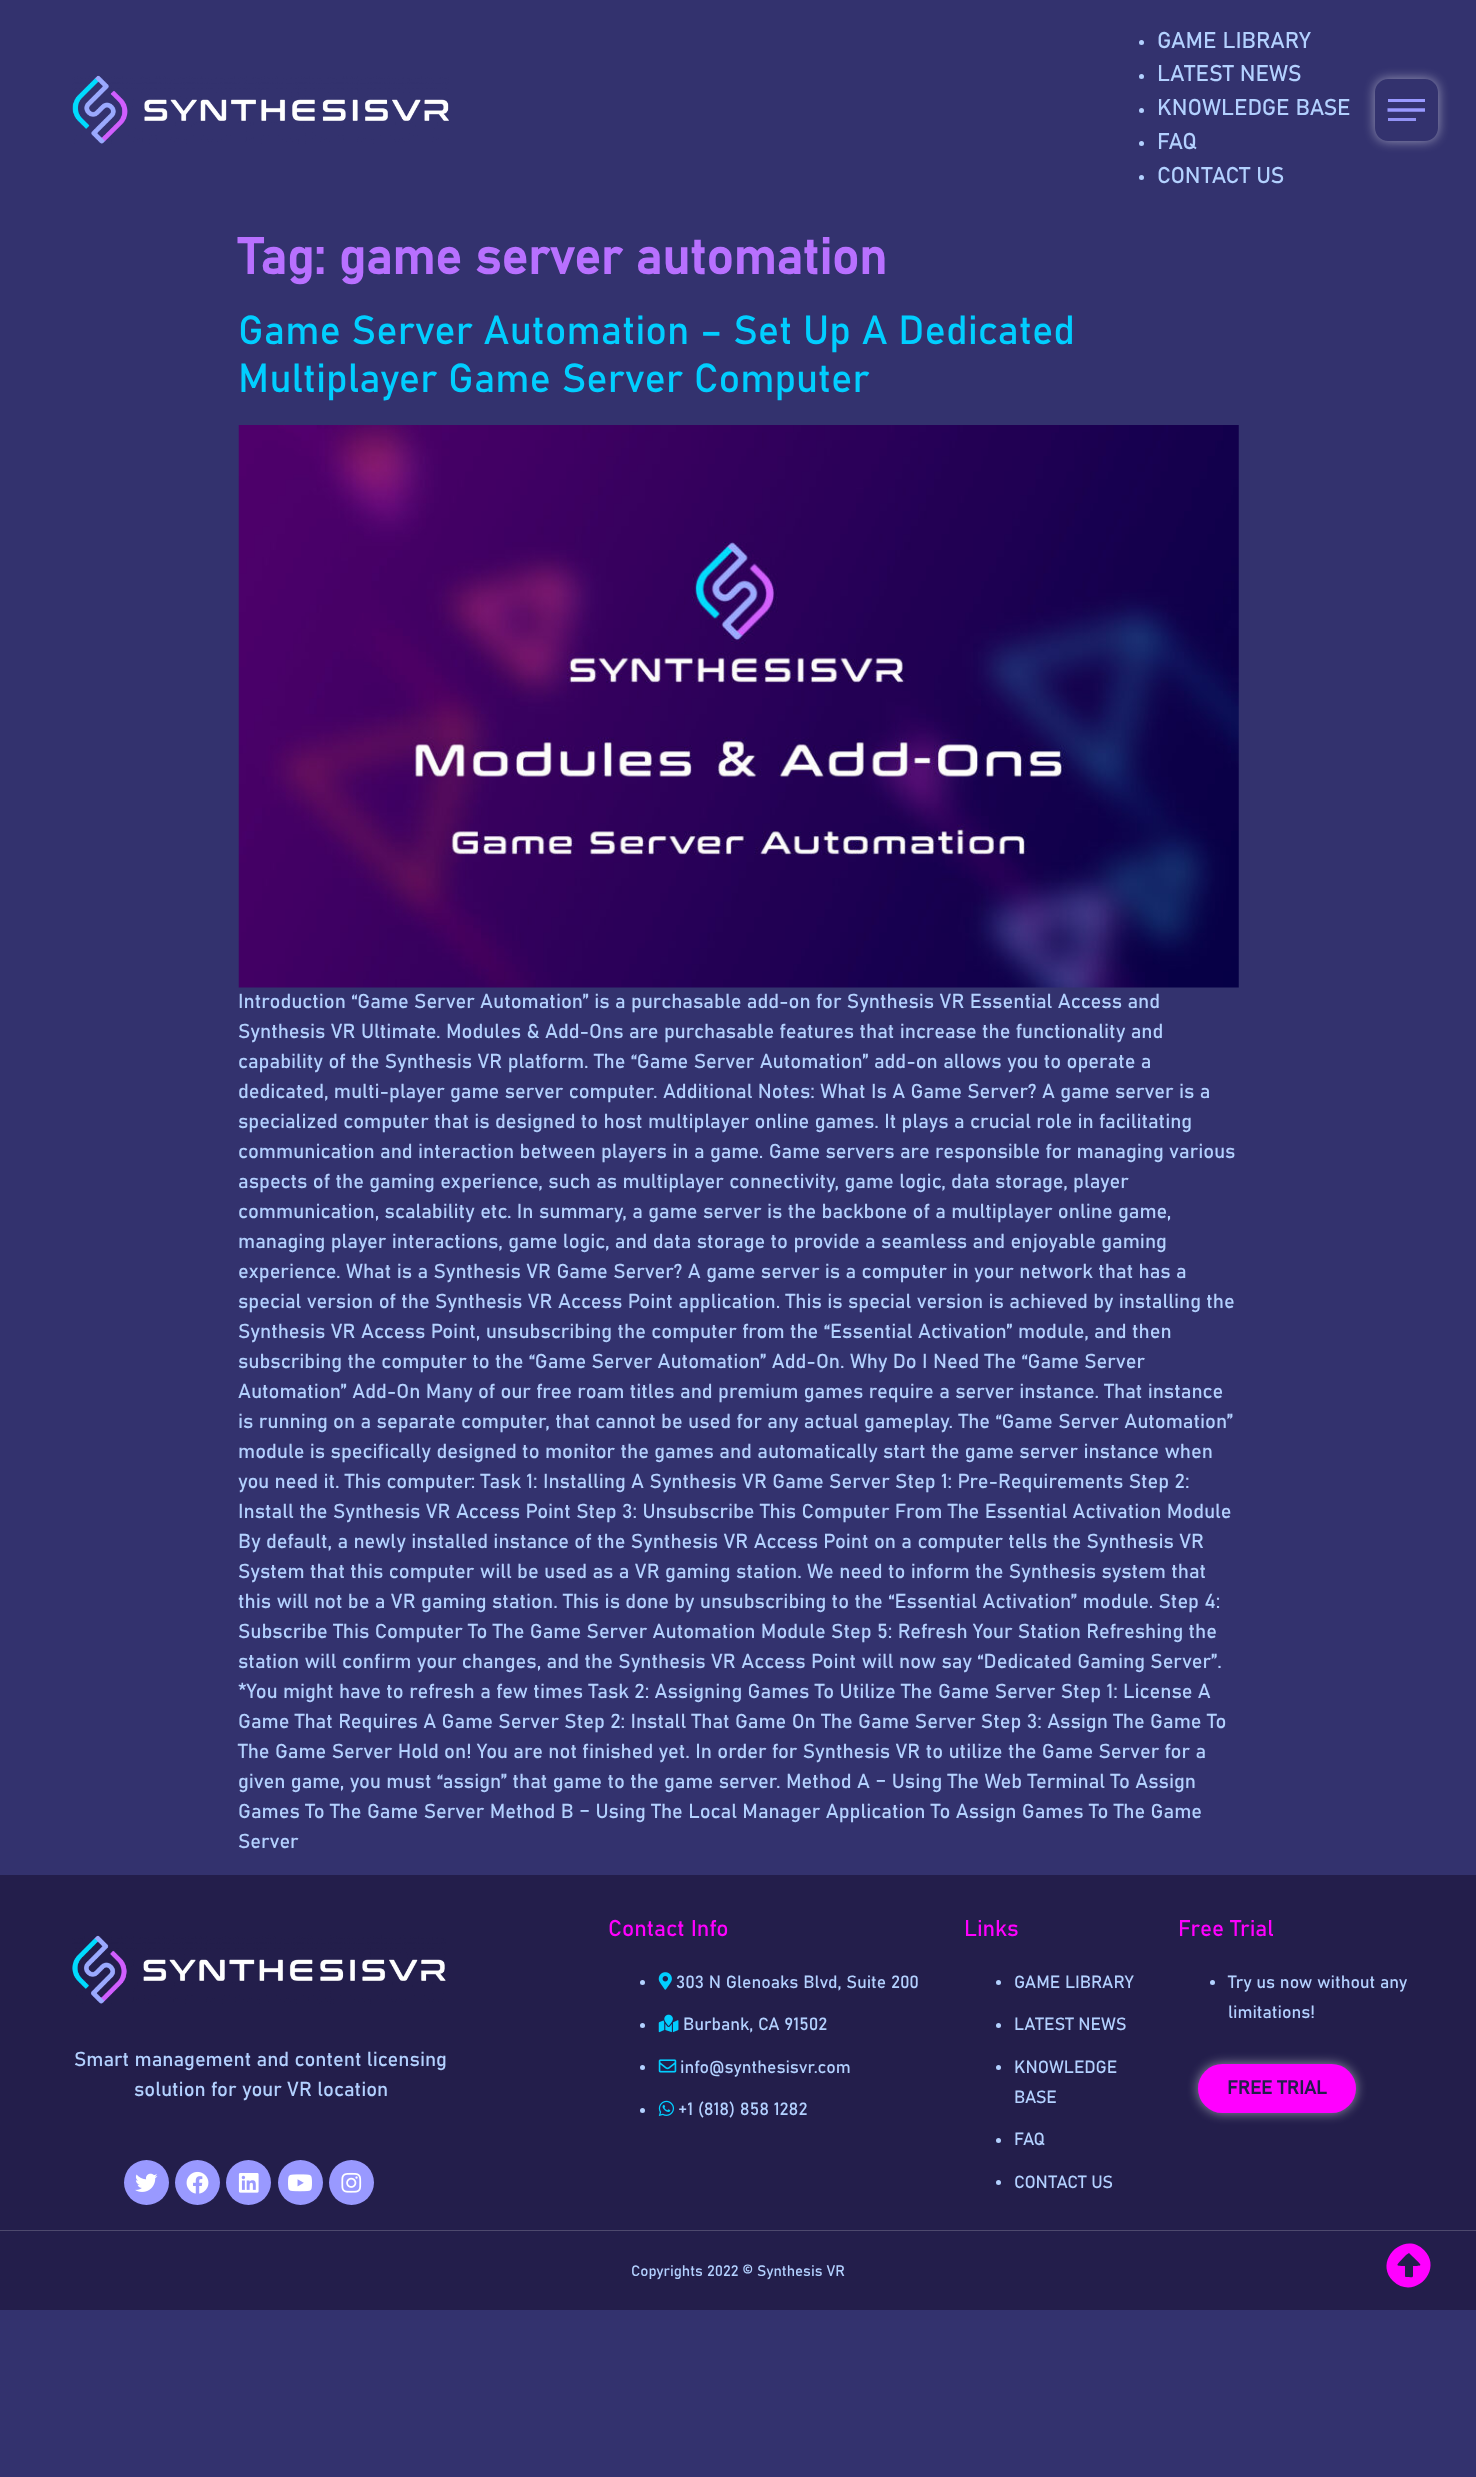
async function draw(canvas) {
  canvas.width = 1476;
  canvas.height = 2477;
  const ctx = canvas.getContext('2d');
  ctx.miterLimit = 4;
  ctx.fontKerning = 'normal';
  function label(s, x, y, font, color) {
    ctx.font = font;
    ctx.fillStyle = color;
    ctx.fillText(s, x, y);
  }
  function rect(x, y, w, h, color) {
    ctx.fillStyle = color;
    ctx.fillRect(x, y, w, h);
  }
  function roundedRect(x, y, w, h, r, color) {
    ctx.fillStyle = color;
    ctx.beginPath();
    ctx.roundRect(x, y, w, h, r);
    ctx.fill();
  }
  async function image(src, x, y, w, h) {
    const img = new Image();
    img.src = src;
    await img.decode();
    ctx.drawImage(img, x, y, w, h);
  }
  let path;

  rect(0, 0, 1476, 2477, '#33326e');
  await image('assets/img1.png', 72, 75, 377, 69);
  ctx.fillStyle = '#b3d1ff';
  ctx.beginPath();
  ctx.arc(1141.5, 42.5, 2.5, 0, 2 * Math.PI);
  ctx.fill();
  label('GAME LIBRARY', 1157, 48, '22.5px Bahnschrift', '#b3d1ff');
  ctx.beginPath();
  ctx.arc(1141.5, 76.5, 2.5, 0, 2 * Math.PI);
  ctx.fill();
  label('LATEST NEWS', 1157, 81, '22.5px Bahnschrift', '#b3d1ff');
  ctx.beginPath();
  ctx.arc(1141.5, 110.5, 2.5, 0, 2 * Math.PI);
  ctx.fill();
  label('KNOWLEDGE BASE', 1157, 115, '22.5px Bahnschrift', '#b3d1ff');
  ctx.beginPath();
  ctx.arc(1141.5, 143.5, 2.5, 0, 2 * Math.PI);
  ctx.fill();
  label('FAQ', 1157, 149, '22.5px Bahnschrift', '#b3d1ff');
  ctx.beginPath();
  ctx.arc(1141.5, 177.5, 2.5, 0, 2 * Math.PI);
  ctx.fill();
  label('CONTACT US', 1157, 183, '22.5px Bahnschrift', '#b3d1ff');
  ctx.save();
  path = new Path2D('M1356 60H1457V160H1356ZM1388 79H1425C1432 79 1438 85 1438 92V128C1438 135 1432 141 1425 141H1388C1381 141 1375 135 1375 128V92C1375 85 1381 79 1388 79Z');
  ctx.clip(path, 'evenodd');
  ctx.fillStyle = '#ffffff80';
  ctx.filter = 'blur(6px)';
  ctx.beginPath();
  ctx.roundRect(1375, 79, 63, 62, 13);
  ctx.fill();
  ctx.filter = 'none';
  ctx.restore();
  rect(1388, 99, 37, 3, '#99f');
  path = new Path2D('M1387.5 110H1425');
  ctx.strokeStyle = '#99f';
  ctx.lineWidth = 3.3;
  ctx.stroke(path);
  rect(1388, 118, 28, 3, '#9292f5');
  label('Tag: game server automation', 238, 274, 'bold 50px Bahnschrift', '#b870ff');
  label('Game Server Automation – Set Up A Dedicated', 238, 344, '40px Bahnschrift', '#01ceff');
  label('Multiplayer Game Server Computer', 238, 392, '40px Bahnschrift', '#01ceff');
  await image('assets/img2.png', 238, 425, 1001, 563);
  label('Introduction “Game Server Automation” is a purchasable add-on for Synthesis VR Essential Access and', 238, 1008, '20px Bahnschrift', '#b3d1ff');
  label('Synthesis VR Ultimate. Modules & Add-Ons are purchasable features that increase the functionality and', 238, 1038, '20px Bahnschrift', '#b3d1ff');
  label('capability of the Synthesis VR platform. The “Game Server Automation” add-on allows you to operate a', 238, 1068, '20px Bahnschrift', '#b3d1ff');
  label('dedicated, multi-player game server computer. Additional Notes: What Is A Game Server? A game server is a', 238, 1098, '20px Bahnschrift', '#b3d1ff');
  label('specialized computer that is designed to host multiplayer online games. It plays a crucial role in facilitating', 238, 1128, '20px Bahnschrift', '#b3d1ff');
  label('communication and interaction between players in a game. Game servers are responsible for managing various', 238, 1158, '20px Bahnschrift', '#b3d1ff');
  label('aspects of the gaming experience, such as multiplayer connectivity, game logic, data storage, player', 238, 1188, '20px Bahnschrift', '#b3d1ff');
  label('communication, scalability etc. In summary, a game server is the backbone of a multiplayer online game,', 238, 1218, '20px Bahnschrift', '#b3d1ff');
  label('managing player interactions, game logic, and data storage to provide a seamless and enjoyable gaming', 238, 1248, '20px Bahnschrift', '#b3d1ff');
  label('experience. What is a Synthesis VR Game Server? A game server is a computer in your network that has a', 238, 1278, '20px Bahnschrift', '#b3d1ff');
  label('special version of the Synthesis VR Access Point application. This is special version is achieved by installing the', 238, 1308, '20px Bahnschrift', '#b3d1ff');
  label('Synthesis VR Access Point, unsubscribing the computer from the “Essential Activation” module, and then', 238, 1338, '20px Bahnschrift', '#b3d1ff');
  label('subscribing the computer to the “Game Server Automation” Add-On. Why Do I Need The “Game Server', 238, 1368, '20px Bahnschrift', '#b3d1ff');
  label('Automation” Add-On Many of our free roam titles and premium games require a server instance. That instance', 238, 1398, '20px Bahnschrift', '#b3d1ff');
  label('is running on a separate computer, that cannot be used for any actual gameplay. The “Game Server Automation”', 238, 1428, '20px Bahnschrift', '#b3d1ff');
  label('module is specifically designed to monitor the games and automatically start the game server instance when', 238, 1458, '20px Bahnschrift', '#b3d1ff');
  label('you need it. This computer: Task 1: Installing A Synthesis VR Game Server Step 1: Pre-Requirements Step 2:', 238, 1488, '20px Bahnschrift', '#b3d1ff');
  label('Install the Synthesis VR Access Point Step 3: Unsubscribe This Computer From The Essential Activation Module', 238, 1518, '20px Bahnschrift', '#b3d1ff');
  label('By default, a newly installed instance of the Synthesis VR Access Point on a computer tells the Synthesis VR', 238, 1548, '20px Bahnschrift', '#b3d1ff');
  label('System that this computer will be used as a VR gaming station. We need to inform the Synthesis system that', 238, 1578, '20px Bahnschrift', '#b3d1ff');
  label('this will not be a VR gaming station. This is done by unsubscribing to the “Essential Activation” module. Step 4:', 238, 1608, '20px Bahnschrift', '#b3d1ff');
  label('Subscribe This Computer To The Game Server Automation Module Step 5: Refresh Your Station Refreshing the', 238, 1638, '20px Bahnschrift', '#b3d1ff');
  label('station will confirm your changes, and the Synthesis VR Access Point will now say “Dedicated Gaming Server”.', 238, 1668, '20px Bahnschrift', '#b3d1ff');
  label('*You might have to refresh a few times Task 2: Assigning Games To Utilize The Game Server Step 1: License A', 238, 1698, '20px Bahnschrift', '#b3d1ff');
  label('Game That Requires A Game Server Step 2: Install That Game On The Game Server Step 3: Assign The Game To', 238, 1728, '20px Bahnschrift', '#b3d1ff');
  label('The Game Server Hold on! You are not finished yet. In order for Synthesis VR to utilize the Game Server for a', 238, 1758, '20px Bahnschrift', '#b3d1ff');
  label('given game, you must “assign” that game to the game server. Method A – Using The Web Terminal To Assign', 238, 1788, '20px Bahnschrift', '#b3d1ff');
  label('Games To The Game Server Method B – Using The Local Manager Application To Assign Games To The Game', 238, 1818, '20px Bahnschrift', '#b3d1ff');
  label('Server', 238, 1848, '20px Bahnschrift', '#b3d1ff');
  rect(0, 1875, 1476, 355, '#231e4b');
  await image('assets/img3.png', 72, 1935, 374, 69);
  label('Smart management and content licensing', 74, 2066, '20px Bahnschrift', '#b3d1ff');
  label('solution for your VR location', 134, 2096, '20px Bahnschrift', '#b3d1ff');
  ctx.fillStyle = '#99f';
  ctx.beginPath();
  ctx.arc(146.5, 2182.5, 22.5, 0, 2 * Math.PI);
  ctx.fill();
  await image('assets/img4.png', 135, 2173, 23, 19);
  ctx.beginPath();
  ctx.arc(197.5, 2182.5, 22.5, 0, 2 * Math.PI);
  ctx.fill();
  await image('assets/img5.png', 186, 2171, 23, 23);
  ctx.beginPath();
  ctx.arc(248.5, 2182.5, 22.5, 0, 2 * Math.PI);
  ctx.fill();
  await image('assets/img6.png', 238, 2173, 21, 20);
  ctx.beginPath();
  ctx.arc(300.5, 2182.5, 22.5, 0, 2 * Math.PI);
  ctx.fill();
  await image('assets/img7.png', 288, 2174, 24, 18);
  ctx.beginPath();
  ctx.arc(351.5, 2182.5, 22.5, 0, 2 * Math.PI);
  ctx.fill();
  await image('assets/img8.png', 341, 2172, 21, 21);
  label('Contact Info', 608, 1936, '22.5px Bahnschrift', '#f0f');
  ctx.fillStyle = '#b3d1ff';
  ctx.beginPath();
  ctx.arc(642.5, 1982.5, 2.5, 0, 2 * Math.PI);
  ctx.fill();
  await image('assets/img9.png', 658, 1972, 14, 18);
  label('303 N Glenoaks Blvd, Suite 200', 676, 1988, '17.5px Bahnschrift', '#b3d1ff');
  ctx.beginPath();
  ctx.arc(642.5, 2025.5, 2.5, 0, 2 * Math.PI);
  ctx.fill();
  await image('assets/img10.png', 658, 2014, 21, 19);
  label('Burbank, CA 91502', 683, 2030, '17.5px Bahnschrift', '#b3d1ff');
  ctx.beginPath();
  ctx.arc(642.5, 2067.5, 2.5, 0, 2 * Math.PI);
  ctx.fill();
  await image('assets/img11.png', 658, 2059, 19, 14);
  label('info@synthesisvr.com', 680, 2073, '17.5px Bahnschrift', '#b3d1ff');
  ctx.beginPath();
  ctx.arc(642.5, 2110.5, 2.5, 0, 2 * Math.PI);
  ctx.fill();
  await image('assets/img12.png', 658, 2100, 17, 16);
  label('+1 (818) 858 1282', 678, 2115, '17.5px Bahnschrift', '#b3d1ff');
  label('Links', 964, 1936, '22.5px Bahnschrift', '#f0f');
  ctx.fillStyle = '#b3d1ff';
  ctx.beginPath();
  ctx.arc(998.5, 1982.5, 2.5, 0, 2 * Math.PI);
  ctx.fill();
  label('GAME LIBRARY', 1014, 1988, '17.5px Bahnschrift', '#b3d1ff');
  ctx.beginPath();
  ctx.arc(998.5, 2025.5, 2.5, 0, 2 * Math.PI);
  ctx.fill();
  label('LATEST NEWS', 1014, 2030, '17.5px Bahnschrift', '#b3d1ff');
  ctx.beginPath();
  ctx.arc(998.5, 2067.5, 2.5, 0, 2 * Math.PI);
  ctx.fill();
  label('KNOWLEDGE', 1014, 2073, '17.5px Bahnschrift', '#b3d1ff');
  label('BASE', 1014, 2103, '17.5px Bahnschrift', '#b3d1ff');
  ctx.beginPath();
  ctx.arc(998.5, 2140.5, 2.5, 0, 2 * Math.PI);
  ctx.fill();
  label('FAQ', 1014, 2145, '17.5px Bahnschrift', '#b3d1ff');
  ctx.beginPath();
  ctx.arc(998.5, 2182.5, 2.5, 0, 2 * Math.PI);
  ctx.fill();
  label('CONTACT US', 1014, 2188, '17.5px Bahnschrift', '#b3d1ff');
  label('Free Trial', 1178, 1936, '22.5px Bahnschrift', '#f0f');
  ctx.fillStyle = '#b3d1ff';
  ctx.beginPath();
  ctx.arc(1212.5, 1982.5, 2.5, 0, 2 * Math.PI);
  ctx.fill();
  label('Try us now without any', 1228, 1988, '17.5px Bahnschrift', '#b3d1ff');
  label('limitations!', 1228, 2018, '17.5px Bahnschrift', '#b3d1ff');
  ctx.fillStyle = '#ffffff80';
  ctx.filter = 'blur(6px)';
  ctx.beginPath();
  ctx.roundRect(1198, 2064, 158, 49, 24.5);
  ctx.fill();
  ctx.filter = 'none';
  roundedRect(1198, 2064, 158, 49, 24.5, '#f0f');
  label('FREE TRIAL', 1227, 2094, 'bold 18.75px Bahnschrift', '#231e4b');
  rect(0, 2231, 1476, 79, '#231e4b');
  rect(0, 2230, 1476, 1, '#4d496d');
  label('Copyrights 2022 © Synthesis VR', 631, 2276, '15px Bahnschrift', '#b3d1ff');
  ctx.fillStyle = '#f0f';
  path = new Path2D('M1393 2281C1373 2261 1404 2230 1424 2250C1444 2270 1414 2301 1393 2281ZM1413 2276V2266C1425 2266 1421 2265 1411 2255L1409 2253L1406 2255C1397 2265 1393 2266 1405 2266V2274C1405 2278 1405 2277 1409 2277C1410 2277 1413 2278 1413 2276Z');
  ctx.fill(path);
}

draw(document.querySelector('canvas'));
